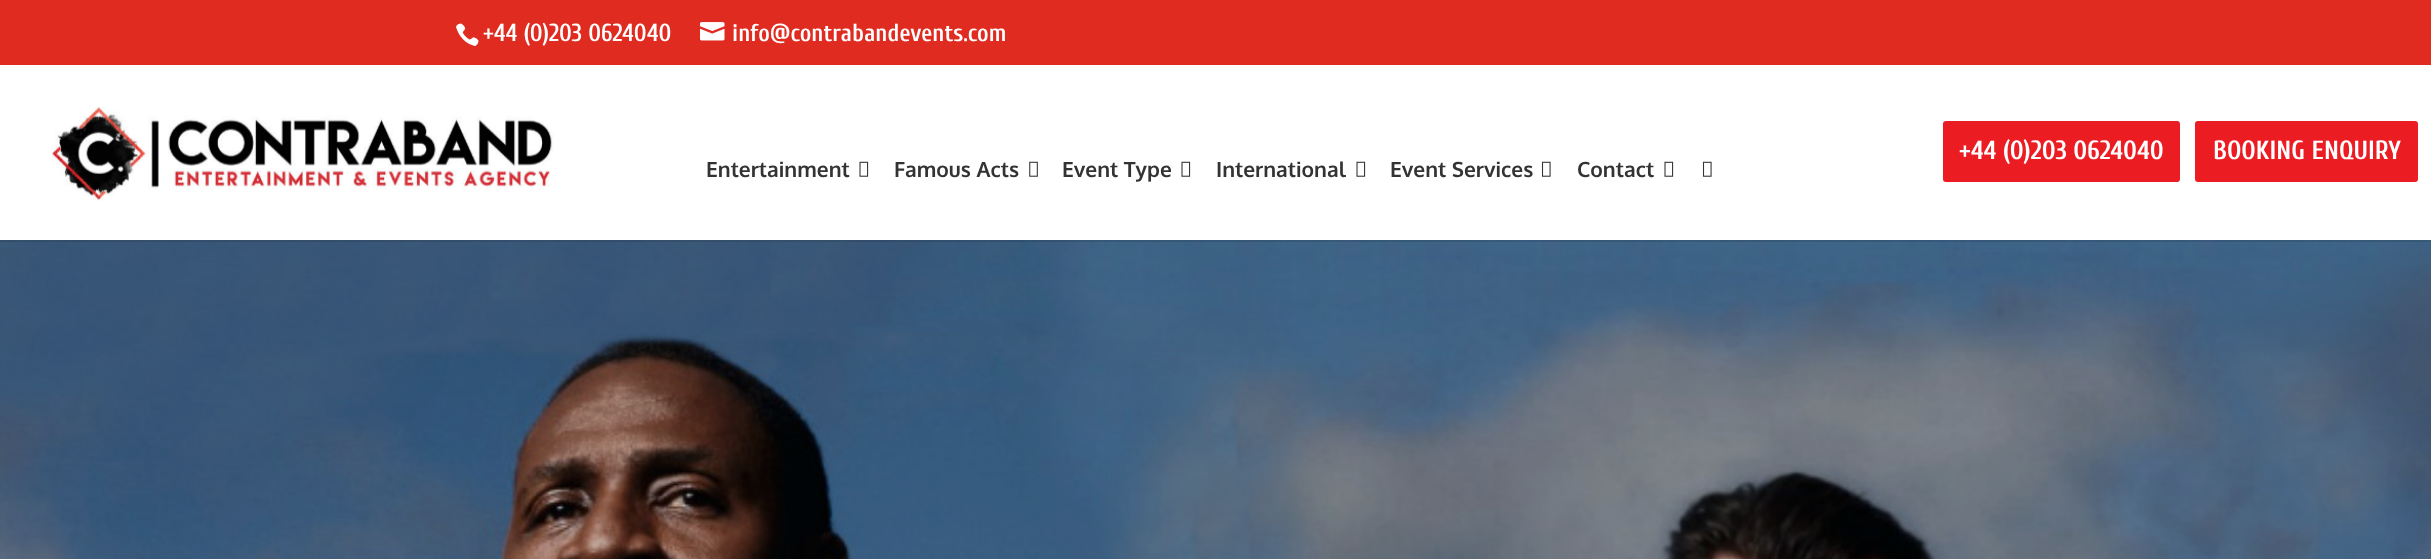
async function draw(canvas) {
  canvas.width = 2431;
  canvas.height = 559;
  const ctx = canvas.getContext('2d');
  ctx.miterLimit = 4;
  ctx.fontKerning = 'normal';
  function label(s, x, y, font, color) {
    ctx.font = font;
    ctx.fillStyle = color;
    ctx.fillText(s, x, y);
  }
  function rect(x, y, w, h, color) {
    ctx.fillStyle = color;
    ctx.fillRect(x, y, w, h);
  }
  async function image(src, x, y, w, h) {
    const img = new Image();
    img.src = src;
    await img.decode();
    ctx.drawImage(img, x, y, w, h);
  }
  let path;

  rect(0, 0, 2431, 559, '#fff');
  rect(0, 0, 2431, 65, '#e02b20');
  await image('assets/img1.png', 456, 23, 23, 23);
  label('+44 (0)203 0624040', 483, 41, '600 24.5px Cuprum', '#fff');
  await image('assets/img2.png', 700, 22, 25, 19);
  label('info@contrabandevents.com', 732, 41, '600 24.5px Cuprum', '#fff');
  await image('assets/img7.png', 0, 240, 2431, 319);
  ctx.fillStyle = '#0000001a';
  path = new Path2D('M0 240V242H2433V67H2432V240Z');
  ctx.fill(path);
  ctx.fillStyle = '#ec1c23';
  ctx.beginPath();
  ctx.roundRect(1942, 120, 239, 63, 4);
  ctx.fill();
  ctx.strokeStyle = '#fff';
  ctx.lineWidth = 2;
  ctx.stroke();
  label('+44 (0)203 0624040', 1959, 159, 'bold 26.25px Cuprum', '#fff');
  ctx.fillStyle = '#ec1c23';
  ctx.beginPath();
  ctx.roundRect(2194, 120, 225, 63, 4);
  ctx.fill();
  ctx.stroke();
  label('BOOKING ENQUIRY', 2213, 159, 'bold 26.25px Cuprum', '#fff');
  await image('assets/img3.png', 51, 107, 503, 94);
  label('Entertainment', 706, 177, 'bold 21px Oxygen', '#333');
  await image('assets/img4.png', 859, 161, 10, 16);
  label('Famous Acts', 894, 177, 'bold 21px Oxygen', '#333');
  await image('assets/img5.png', 1029, 161, 9, 16);
  label('Event Type', 1062, 177, 'bold 21px Oxygen', '#333');
  await image('assets/img4.png', 1181, 161, 10, 16);
  label('International', 1216, 177, 'bold 21px Oxygen', '#333');
  await image('assets/img4.png', 1356, 161, 10, 16);
  label('Event Services', 1390, 177, 'bold 21px Oxygen', '#333');
  await image('assets/img6.png', 1541, 161, 10, 16);
  label('Contact', 1577, 177, 'bold 21px Oxygen', '#333');
  await image('assets/img4.png', 1664, 161, 10, 16);
  await image('assets/img6.png', 1702, 161, 10, 16);
}

draw(document.querySelector('canvas'));
